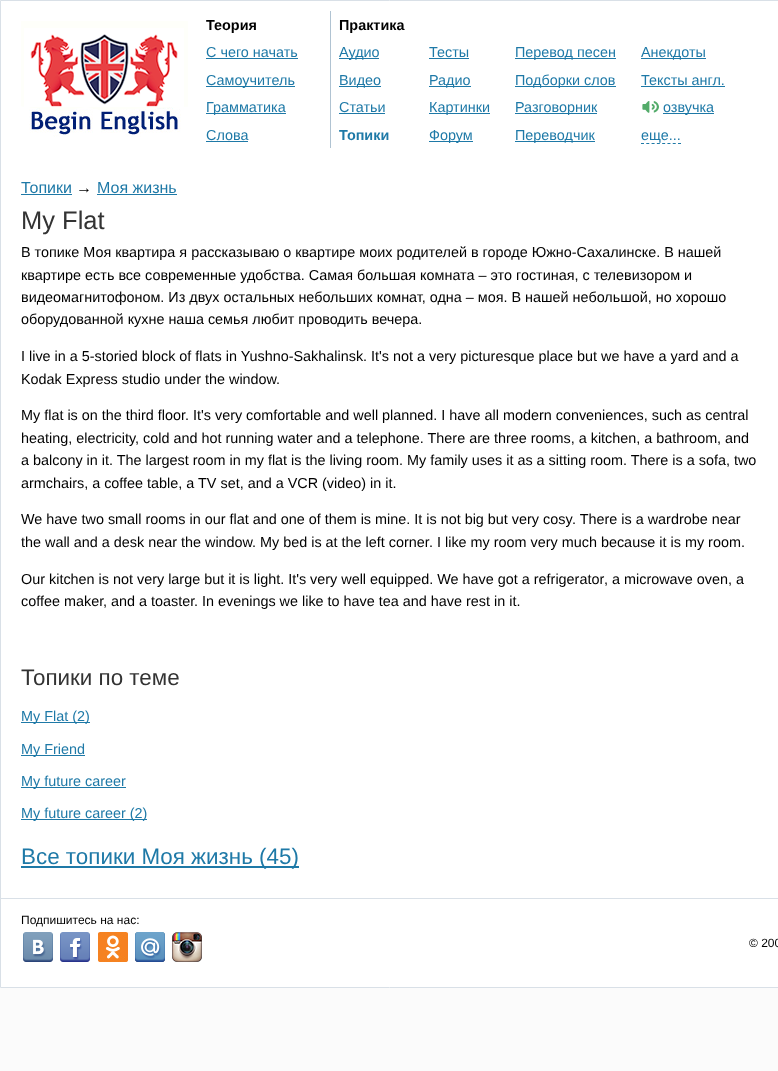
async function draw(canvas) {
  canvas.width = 778;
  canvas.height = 1071;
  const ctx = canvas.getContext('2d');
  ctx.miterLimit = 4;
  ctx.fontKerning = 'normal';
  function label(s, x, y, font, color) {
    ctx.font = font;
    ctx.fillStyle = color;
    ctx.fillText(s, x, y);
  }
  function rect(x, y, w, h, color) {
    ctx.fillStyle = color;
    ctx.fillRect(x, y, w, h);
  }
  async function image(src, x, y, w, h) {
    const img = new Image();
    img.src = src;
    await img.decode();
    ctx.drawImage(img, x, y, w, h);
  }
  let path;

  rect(0, 0, 778, 1071, '#fbfbfb');
  ctx.fillStyle = '#fff';
  ctx.beginPath();
  ctx.rect(0.5, 0.5, 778, 987);
  ctx.fill();
  ctx.strokeStyle = '#d9e0e7';
  ctx.stroke();
  await image('assets/img1.png', 21, 21, 167, 116);
  label('Теория', 206, 30, 'bold 14.4px Liberation Sans', '#000');
  label('С чего начать', 206, 57, '14.4px Liberation Sans', '#1e79a7');
  rect(206, 58, 92, 1, '#1e79a7');
  rect(206, 86, 89, 1, '#1e79a7');
  label('Самоучитель', 206, 85, '14.4px Liberation Sans', '#1e79a7');
  rect(206, 113, 80, 1, '#1e79a7');
  label('Грамматика', 206, 112, '14.4px Liberation Sans', '#1e79a7');
  label('Слова', 206, 140, '14.4px Liberation Sans', '#1e79a7');
  rect(206, 141, 42, 1, '#1e79a7');
  rect(330, 11, 1, 137, '#b0c3d2');
  label('Практика', 339, 30, 'bold 14.4px Liberation Sans', '#000');
  rect(339, 58, 40, 1, '#1e79a7');
  label('Аудио', 339, 57, '14.4px Liberation Sans', '#1e79a7');
  rect(339, 86, 42, 1, '#1e79a7');
  label('Видео', 339, 85, '14.4px Liberation Sans', '#1e79a7');
  label('Статьи', 339, 112, '14.4px Liberation Sans', '#1e79a7');
  rect(339, 113, 46, 1, '#1e79a7');
  label('Топики', 339, 140, 'bold 14.4px Liberation Sans', '#1e79a7');
  label('Тесты', 429, 57, '14.4px Liberation Sans', '#1e79a7');
  rect(429, 58, 40, 1, '#1e79a7');
  rect(429, 86, 42, 1, '#1e79a7');
  label('Радио', 429, 85, '14.4px Liberation Sans', '#1e79a7');
  rect(429, 113, 61, 1, '#1e79a7');
  label('Картинки', 429, 112, '14.4px Liberation Sans', '#1e79a7');
  rect(429, 141, 44, 1, '#1e79a7');
  label('Форум', 429, 140, '14.4px Liberation Sans', '#1e79a7');
  rect(515, 58, 101, 1, '#1e79a7');
  label('Перевод песен', 515, 57, '14.4px Liberation Sans', '#1e79a7');
  rect(515, 86, 101, 1, '#1e79a7');
  label('Подборки слов', 515, 85, '14.4px Liberation Sans', '#1e79a7');
  rect(515, 113, 82, 1, '#1e79a7');
  label('Разговорник', 515, 112, '14.4px Liberation Sans', '#1e79a7');
  rect(515, 141, 80, 1, '#1e79a7');
  label('Переводчик', 515, 140, '14.4px Liberation Sans', '#1e79a7');
  rect(641, 58, 65, 1, '#1e79a7');
  label('Анекдоты', 641, 57, '14.4px Liberation Sans', '#1e79a7');
  label('Тексты англ.', 641, 85, '14.4px Liberation Sans', '#1e79a7');
  rect(641, 86, 84, 1, '#1e79a7');
  await image('assets/img2.png', 642, 101, 17, 12);
  rect(663, 113, 51, 1, '#1e79a7');
  label('озвучка', 663, 112, '14.4px Liberation Sans', '#1e79a7');
  label('еще...', 641, 140, '14.4px Liberation Sans', '#1e79a7');
  path = new Path2D('M641 143.5H681');
  ctx.strokeStyle = '#1e79a7';
  ctx.setLineDash([3, 2.29]);
  ctx.stroke(path);
  label('Топики', 21, 193, '16px Liberation Sans', '#1e79a7');
  rect(21, 194, 51, 1, '#1e79a7');
  label('→', 76, 193, '16px Liberation Sans', '#000');
  label('Моя жизнь', 97, 193, '16px Liberation Sans', '#1e79a7');
  rect(97, 194, 80, 1, '#1e79a7');
  label('My Flat', 21, 229, '25.5px Liberation Sans', '#333');
  label('В топике Моя квартира я рассказываю о квартире моих родителей в городе Южно-Сахалинске. В нашей', 21, 257, '14.4px Liberation Sans', '#000');
  label('квартире есть все современные удобства. Самая большая комната – это гостиная, с телевизором и', 21, 280, '14.4px Liberation Sans', '#000');
  label('видеомагнитофоном. Из двух остальных небольших комнат, одна – моя. В нашей небольшой, но хорошо', 21, 302, '14.4px Liberation Sans', '#000');
  label('оборудованной кухне наша семья любит проводить вечера.', 21, 324, '14.4px Liberation Sans', '#000');
  label('I live in a 5-storied block of flats in Yushno-Sakhalinsk. It\'s not a very picturesque place but we have a yard and a', 21, 361, '14.4px Liberation Sans', '#000');
  label('Kodak Express studio under the window', 21, 384, '14.4px Liberation Sans', '#000');
  label('.', 276, 384, '14.4px Liberation Sans', '#000');
  label('My flat is on the third floor', 21, 420, '14.4px Liberation Sans', '#000');
  label('. It\'s very comfortable and well planned. I have all modern conveniences, such as central', 185, 420, '14.4px Liberation Sans', '#000');
  label('heating, electricity', 21, 443, '14.4px Liberation Sans', '#000');
  label(', cold and hot running water and a telephone. There are three rooms, a kitchen, a bathroom, and', 135, 443, '14.4px Liberation Sans', '#000');
  label('a balcony in it. The largest room in my flat is the living room. My family uses it as a sitting room. There is a sofa, two', 21, 465, '14.4px Liberation Sans', '#000');
  label('armchairs, a coffee table, a TV set, and a VCR (video) in it.', 21, 488, '14.4px Liberation Sans', '#000');
  label('We have two small rooms in our flat and one of them is mine. It is not big but very cosy', 21, 524, '14.4px Liberation Sans', '#000');
  label('. There is a wardrobe near', 572, 524, '14.4px Liberation Sans', '#000');
  label('the wall and a desk near the window', 21, 547, '14.4px Liberation Sans', '#000');
  label('. My bed is at the left corner', 252, 547, '14.4px Liberation Sans', '#000');
  label('. I like my room very much because it is my room.', 429, 547, '14.4px Liberation Sans', '#000');
  label('Our kitchen is not very large but it is light. It\'s very well equipped. We have got a refrigerator', 21, 584, '14.4px Liberation Sans', '#000');
  label(', a microwave oven, a', 604, 584, '14.4px Liberation Sans', '#000');
  label('coffee maker', 21, 606, '14.4px Liberation Sans', '#000');
  label(', and a toaster', 103, 606, '14.4px Liberation Sans', '#000');
  label('. In evenings we like to have tea and have rest in it.', 194, 606, '14.4px Liberation Sans', '#000');
  label('Топики по теме', 21, 685, '22.4px Liberation Sans', '#333');
  rect(21, 722, 69, 1, '#1e79a7');
  label('My Flat (2)', 21, 721, '14.4px Liberation Sans', '#1e79a7');
  rect(21, 755, 64, 1, '#1e79a7');
  label('My Friend', 21, 754, '14.4px Liberation Sans', '#1e79a7');
  rect(21, 787, 105, 1, '#1e79a7');
  label('My future career', 21, 786, '14.4px Liberation Sans', '#1e79a7');
  rect(21, 819, 126, 1, '#1e79a7');
  label('My future career (2)', 21, 818, '14.4px Liberation Sans', '#1e79a7');
  rect(21, 866, 278, 2, '#1e79a7');
  label('Все топики Моя жизнь (45)', 21, 864, '22.4px Liberation Sans', '#1e79a7');
  rect(1, 898, 777, 1, '#d9e0e7');
  label('Подпишитесь на нас:', 21, 924, '12px Liberation Sans', '#000');
  await image('assets/img3.png', 23, 932, 30, 30);
  await image('assets/img4.png', 60, 932, 30, 30);
  await image('assets/img5.png', 98, 932, 30, 30);
  await image('assets/img6.png', 135, 932, 30, 30);
  await image('assets/img7.png', 172, 932, 30, 30);
  label('© 200', 749, 947, '12px Liberation Sans', '#000');
}

draw(document.querySelector('canvas'));
